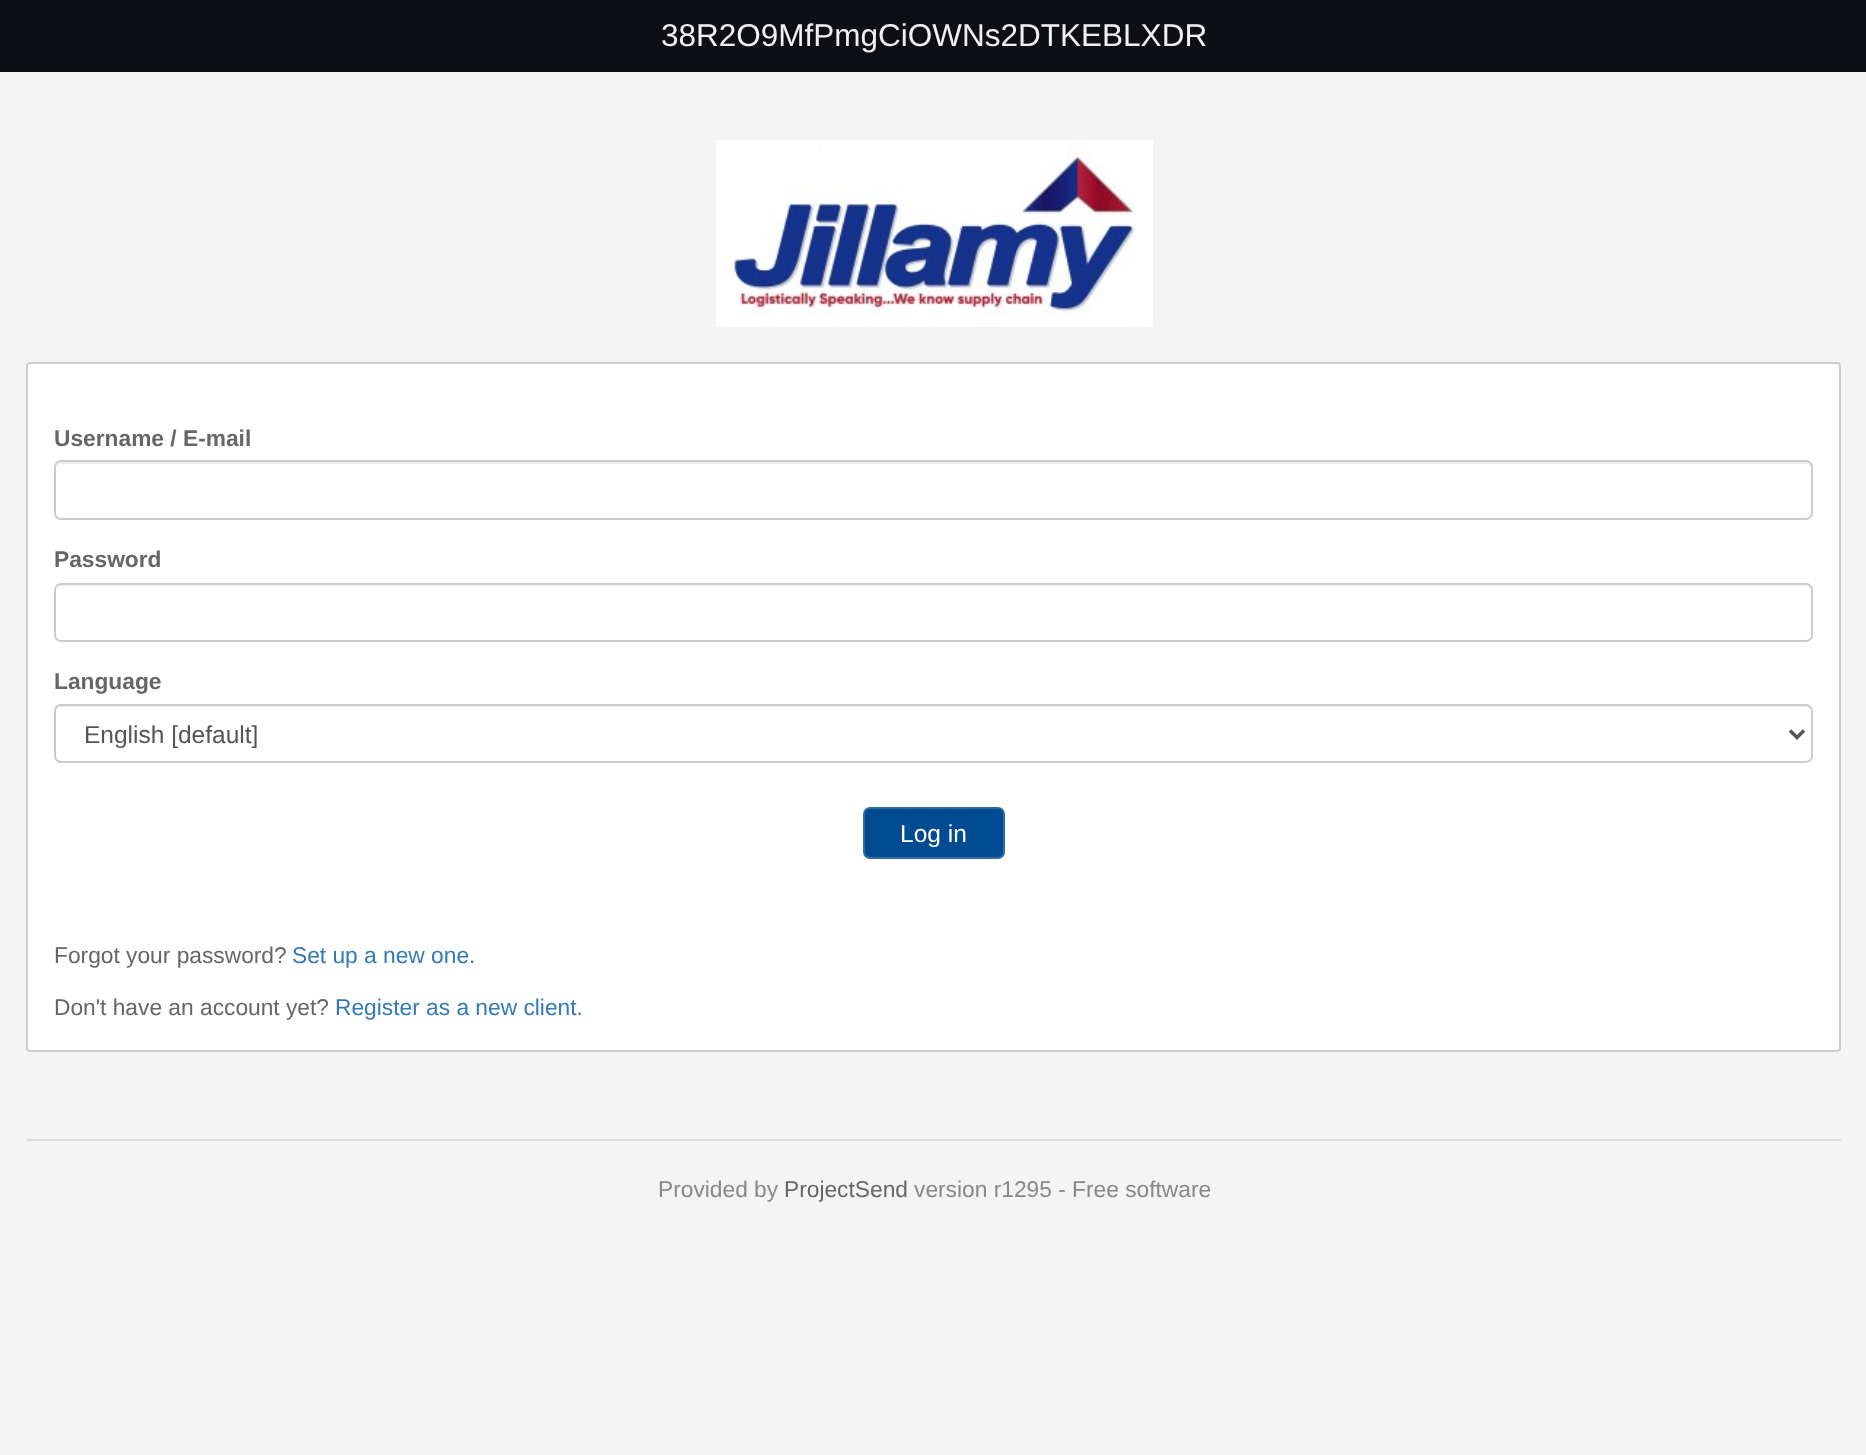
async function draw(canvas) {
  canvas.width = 1866;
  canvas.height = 1455;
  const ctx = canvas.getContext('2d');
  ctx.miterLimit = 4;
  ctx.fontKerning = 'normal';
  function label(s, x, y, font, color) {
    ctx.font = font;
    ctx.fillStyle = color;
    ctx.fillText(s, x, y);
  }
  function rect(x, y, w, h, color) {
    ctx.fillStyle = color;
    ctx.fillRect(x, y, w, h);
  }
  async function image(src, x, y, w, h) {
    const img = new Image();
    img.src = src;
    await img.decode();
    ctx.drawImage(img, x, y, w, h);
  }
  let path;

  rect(0, 0, 1866, 1455, '#f4f4f4');
  rect(0, 0, 1866, 72, '#0d0f14');
  label('38R2O9MfPmgCiOWNs2DTKEBLXDR', 661, 46, '31.5px Liberation Sans', '#f0f0f0');
  await image('assets/img1.png', 716, 140, 437, 187);
  ctx.fillStyle = '#fff';
  ctx.beginPath();
  ctx.roundRect(27, 363, 1813, 688, 3);
  ctx.fill();
  ctx.strokeStyle = '#ccc';
  ctx.lineWidth = 2;
  ctx.stroke();
  label('Username / E-mail', 54, 446, 'bold 22.75px Liberation Sans', '#666');
  ctx.fillStyle = '#ececec';
  path = new Path2D('M61 464H1806C1809 464 1811 466 1811 469C1811 466 1810 462 1806 462H61C57 462 56 466 56 469C56 466 58 464 61 464Z');
  ctx.fill(path);
  ctx.beginPath();
  ctx.roundRect(55, 461, 1757, 58, 6);
  ctx.stroke();
  label('Password', 54, 567, 'bold 22.75px Liberation Sans', '#666');
  ctx.fillStyle = '#ececec';
  path = new Path2D('M61 586H1806C1809 586 1811 589 1811 592C1811 589 1810 585 1806 585H61C57 585 56 589 56 592C56 589 58 586 61 586Z');
  ctx.fill(path);
  ctx.beginPath();
  ctx.roundRect(55, 584, 1757, 57, 6);
  ctx.stroke();
  label('Language', 54, 689, 'bold 22.75px Liberation Sans', '#666');
  ctx.fillStyle = '#ececec';
  path = new Path2D('M61 707H1806C1809 707 1811 709 1811 712C1811 709 1810 705 1806 705H61C57 705 56 709 56 712C56 709 58 707 61 707Z');
  ctx.fill(path);
  ctx.beginPath();
  ctx.roundRect(55, 705, 1757, 57, 6);
  ctx.stroke();
  path = new Path2D('M1790 730.5L1797 737.5L1804 730.5');
  ctx.strokeStyle = '#555';
  ctx.lineWidth = 3.5;
  ctx.stroke(path);
  label('English [default]', 84, 743, '24.5px Liberation Sans', '#555');
  ctx.fillStyle = '#004b92';
  ctx.beginPath();
  ctx.roundRect(864, 808, 140, 50, 6);
  ctx.fill();
  ctx.strokeStyle = '#2e6da4';
  ctx.lineWidth = 2;
  ctx.stroke();
  label('Log in', 900, 842, '24.5px Liberation Sans', '#fff');
  label('Forgot your password?', 54, 963, '22.75px Liberation Sans', '#666');
  label('Set up a new one.', 292, 963, '22.75px Liberation Sans', '#337ab7');
  label('Don\'t have an account yet?', 54, 1015, '22.75px Liberation Sans', '#666');
  label('Register as a new client.', 335, 1015, '22.75px Liberation Sans', '#337ab7');
  rect(26, 1139, 1815, 2, '#dedede');
  label('Provided by', 658, 1197, '22.75px Liberation Sans', '#888');
  label('ProjectSend', 784, 1197, '22.75px Liberation Sans', '#666');
  label('version r1295 - Free software', 914, 1197, '22.75px Liberation Sans', '#888');
}

draw(document.querySelector('canvas'));
